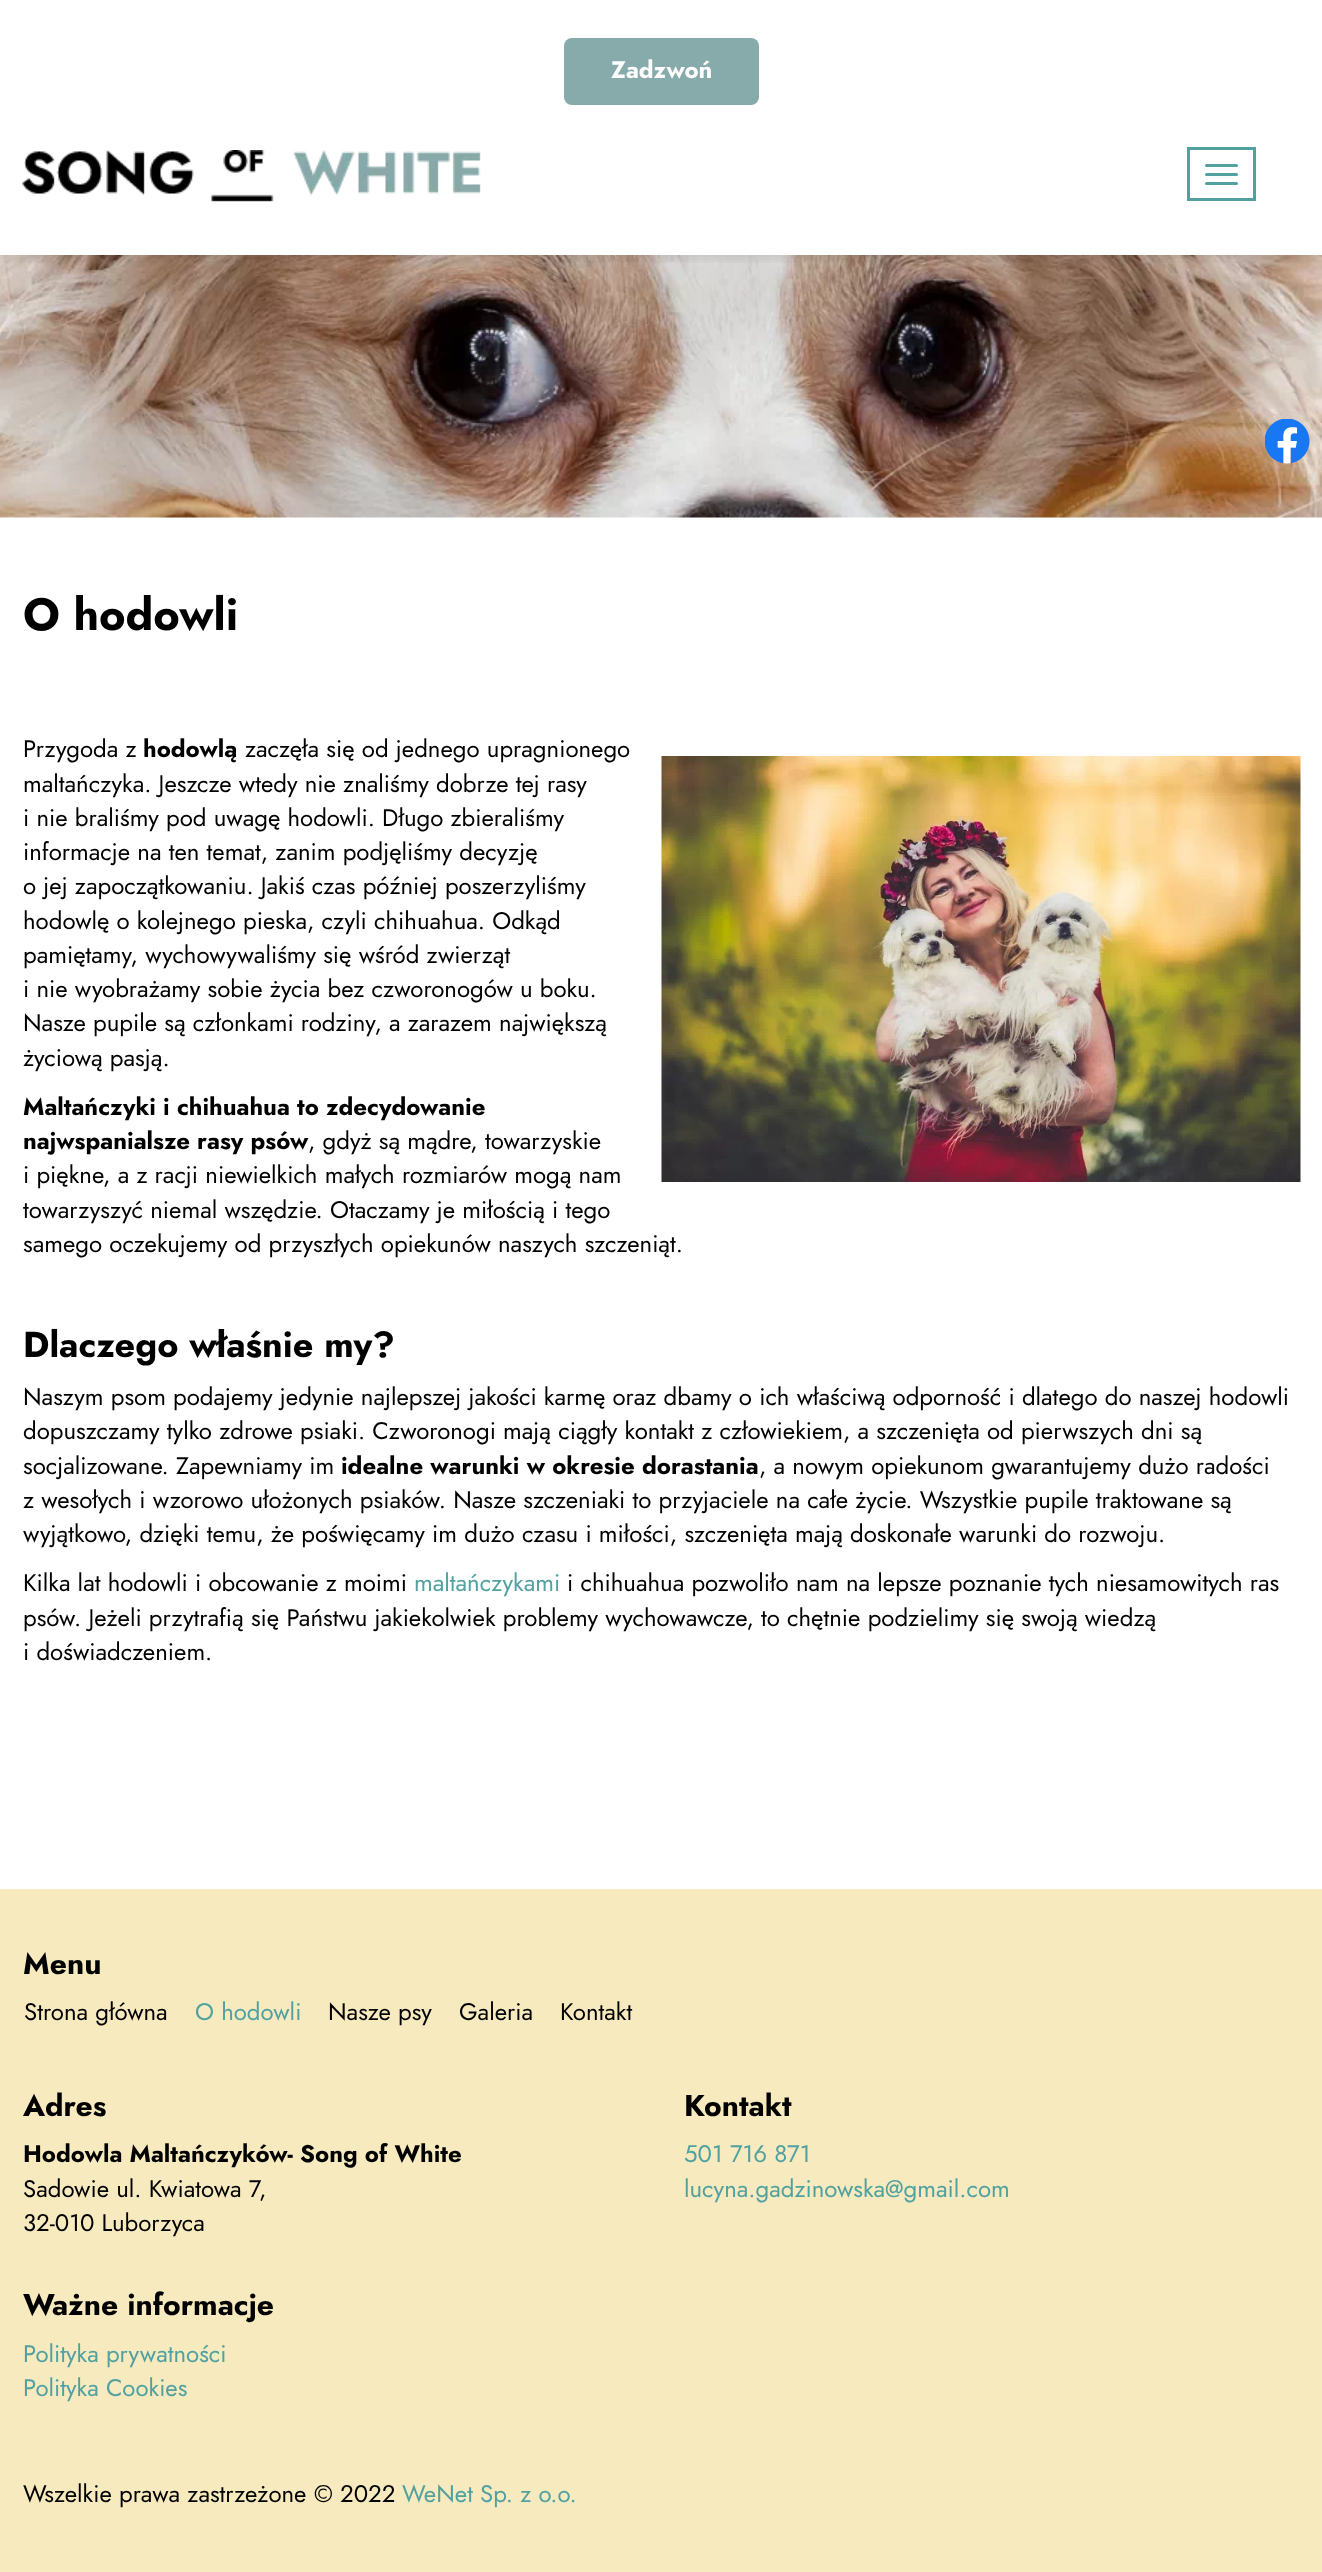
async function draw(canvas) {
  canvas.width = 1322;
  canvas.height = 2572;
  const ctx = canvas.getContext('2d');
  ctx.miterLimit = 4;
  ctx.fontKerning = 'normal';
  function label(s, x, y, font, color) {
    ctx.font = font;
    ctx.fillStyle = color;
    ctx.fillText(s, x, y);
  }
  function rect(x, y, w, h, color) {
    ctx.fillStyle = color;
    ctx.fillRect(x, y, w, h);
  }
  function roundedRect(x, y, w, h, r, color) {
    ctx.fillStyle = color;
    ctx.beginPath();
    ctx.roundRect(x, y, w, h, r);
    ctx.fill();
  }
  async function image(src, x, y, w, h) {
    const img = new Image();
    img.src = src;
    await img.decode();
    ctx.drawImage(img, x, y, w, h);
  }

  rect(0, 0, 1322, 2572, '#fff');
  await image('assets/img2.png', 0, 255, 1322, 263);
  ctx.save();
  ctx.beginPath();
  ctx.rect(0, 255, 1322, 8);
  ctx.clip();
  ctx.fillStyle = '#00000014';
  ctx.filter = 'blur(4.5px)';
  ctx.beginPath();
  ctx.rect(0, 5, 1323, 255);
  ctx.fill();
  ctx.filter = 'none';
  ctx.restore();
  roundedRect(564, 38, 195, 67, 8, '#87aaaa');
  label('Zadzwoń', 611, 78, 'bold 24px Jost', '#fdfdfd');
  await image('assets/img1.png', 22, 150, 459, 52);
  ctx.strokeStyle = '#52a1a1';
  ctx.lineWidth = 3;
  ctx.strokeRect(1188.5, 148.5, 66, 51);
  roundedRect(1205, 164, 33, 3, 1.5, '#52a1a1');
  roundedRect(1205, 173, 33, 3, 1.5, '#52a1a1');
  roundedRect(1205, 182, 33, 3, 1.5, '#52a1a1');
  label('O hodowli', 23, 630, 'bold 45px Jost', '#000');
  label('Przygoda z', 23, 757, '24px Jost', '#000');
  label('hodowlą', 143, 757, 'bold 24px Jost', '#000');
  label('zaczęła się od jednego upragnionego', 245, 757, '24px Jost', '#000');
  label('maltańczyka. Jeszcze wtedy nie znaliśmy dobrze tej rasy', 23, 792, '24px Jost', '#000');
  label('i nie braliśmy pod uwagę hodowli. Długo zbieraliśmy', 23, 826, '24px Jost', '#000');
  label('informacje na ten temat, zanim podjęliśmy decyzję', 23, 860, '24px Jost', '#000');
  label('o jej zapoczątkowaniu. Jakiś czas później poszerzyliśmy', 23, 894, '24px Jost', '#000');
  label('hodowlę o kolejnego pieska, czyli chihuahua. Odkąd', 23, 929, '24px Jost', '#000');
  label('pamiętamy, wychowywaliśmy się wśród zwierząt', 23, 963, '24px Jost', '#000');
  label('i nie wyobrażamy sobie życia bez czworonogów u boku.', 23, 997, '24px Jost', '#000');
  label('Nasze pupile są członkami rodziny, a zarazem największą', 23, 1031, '24px Jost', '#000');
  label('życiową pasją.', 23, 1066, '24px Jost', '#000');
  await image('assets/img3.png', 661, 756, 640, 426);
  label('Maltańczyki i chihuahua to zdecydowanie', 23, 1115, 'bold 24px Jost', '#000');
  label('najwspanialsze rasy psów', 23, 1149, 'bold 24px Jost', '#000');
  label(', gdyż są mądre, towarzyskie', 308, 1149, '24px Jost', '#000');
  label('i piękne, a z racji niewielkich małych rozmiarów mogą nam', 23, 1183, '24px Jost', '#000');
  label('towarzyszyć niemal wszędzie. Otaczamy je miłością i tego', 23, 1218, '24px Jost', '#000');
  label('samego oczekujemy od przyszłych opiekunów naszych szczeniąt.', 23, 1252, '24px Jost', '#000');
  label('Dlaczego właśnie my?', 23, 1357, 'bold 36px Jost', '#000');
  label('Naszym psom podajemy jedynie najlepszej jakości karmę oraz dbamy o ich właściwą odporność i dlatego do naszej hodowli', 23, 1405, '24px Jost', '#000');
  label('dopuszczamy tylko zdrowe psiaki. Czworonogi mają ciągły kontakt z człowiekiem, a szczenięta od pierwszych dni są', 23, 1439, '24px Jost', '#000');
  label('socjalizowane. Zapewniamy im', 23, 1474, '24px Jost', '#000');
  label('idealne warunki w okresie dorastania', 341, 1474, 'bold 24px Jost', '#000');
  label(', a nowym opiekunom gwarantujemy dużo radości', 759, 1474, '24px Jost', '#000');
  label('z wesołych i wzorowo ułożonych psiaków. Nasze szczeniaki to przyjaciele na całe życie. Wszystkie pupile traktowane są', 23, 1508, '24px Jost', '#000');
  label('wyjątkowo, dzięki temu, że poświęcamy im dużo czasu i miłości, szczenięta mają doskonałe warunki do rozwoju.', 23, 1542, '24px Jost', '#000');
  label('Kilka lat hodowli i obcowanie z moimi', 23, 1591, '24px Jost', '#000');
  label('maltańczykami', 414, 1591, '24px Jost', '#52a1a1');
  label('i chihuahua pozwoliło nam na lepsze poznanie tych niesamowitych ras', 567, 1591, '24px Jost', '#000');
  label('psów. Jeżeli przytrafią się Państwu jakiekolwiek problemy wychowawcze, to chętnie podzielimy się swoją wiedzą', 23, 1626, '24px Jost', '#000');
  label('i doświadczeniem.', 23, 1660, '24px Jost', '#000');
  await image('assets/img4.png', 1265, 419, 45, 45);
  rect(0, 1889, 1322, 683, '#f6eabe');
  label('Menu', 23, 1974, 'bold 30px Jost', '#000');
  label('Strona główna', 24, 2020, '24px Jost', '#000');
  label('O hodowli', 195, 2020, '24px Jost', '#52a1a1');
  label('Nasze psy', 328, 2020, '24px Jost', '#000');
  label('Galeria', 459, 2020, '24px Jost', '#000');
  label('Kontakt', 560, 2020, '24px Jost', '#000');
  label('Adres', 23, 2116, 'bold 30px Jost', '#000');
  label('Hodowla Maltańczyków- Song of White', 23, 2162, 'bold 24px Jost', '#000');
  label('Sadowie ul. Kwiatowa 7,', 23, 2197, '24px Jost', '#000');
  label('32-010 Luborzyca', 23, 2231, '24px Jost', '#000');
  label('Kontakt', 684, 2116, 'bold 30px Jost', '#000');
  label('501 716 871', 684, 2162, '24px Jost', '#52a1a1');
  label('lucyna.gadzinowska@gmail.com', 684, 2197, '24px Jost', '#52a1a1');
  label('Ważne informacje', 23, 2315, 'bold 30px Jost', '#000');
  label('Polityka prywatności', 23, 2362, '24px Jost', '#52a1a1');
  label('Polityka Cookies', 23, 2396, '24px Jost', '#52a1a1');
  label('Wszelkie prawa zastrzeżone © 2022', 23, 2502, '24px Jost', '#000');
  label('WeNet Sp. z o.o.', 402, 2502, '24px Jost', '#52a1a1');
}

draw(document.querySelector('canvas'));
